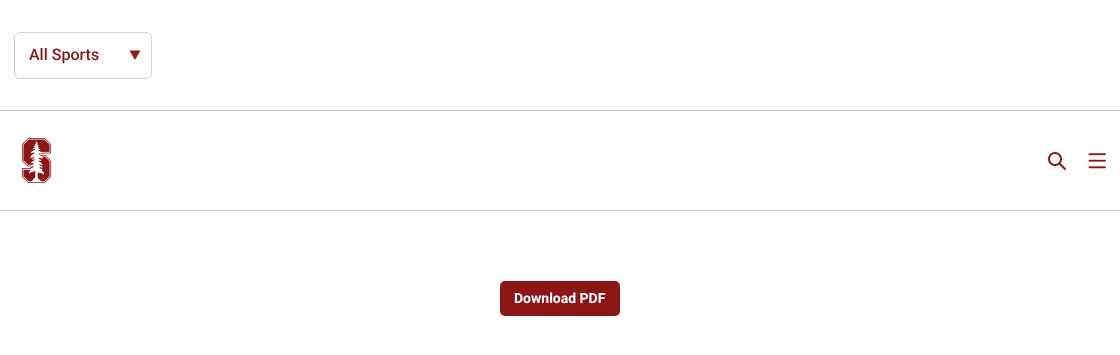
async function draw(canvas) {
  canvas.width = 1120;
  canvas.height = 355;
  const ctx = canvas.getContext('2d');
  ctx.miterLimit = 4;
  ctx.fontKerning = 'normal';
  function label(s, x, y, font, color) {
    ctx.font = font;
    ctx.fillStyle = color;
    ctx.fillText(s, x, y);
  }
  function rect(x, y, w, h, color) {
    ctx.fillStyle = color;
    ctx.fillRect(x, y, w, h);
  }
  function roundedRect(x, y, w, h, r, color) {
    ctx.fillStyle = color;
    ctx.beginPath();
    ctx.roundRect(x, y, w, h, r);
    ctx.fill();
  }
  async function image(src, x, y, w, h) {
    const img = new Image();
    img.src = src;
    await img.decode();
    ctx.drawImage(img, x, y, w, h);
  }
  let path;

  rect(0, 0, 1120, 355, '#fff');
  rect(0, 110, 1120, 1, '#c4c1be');
  ctx.fillStyle = '#9b1919';
  path = new Path2D('M129.5 50.5H140.5L135 60');
  ctx.fill(path);
  ctx.beginPath();
  ctx.roundRect(14.5, 32.5, 137, 46, 5.5);
  ctx.strokeStyle = '#d1d0d0';
  ctx.stroke();
  label('All Sports', 29, 60, '500 16px Roboto', '#8c1515');
  rect(0, 210, 1120, 1, '#c4c1be');
  await image('assets/img1.png', 21, 138, 31, 45);
  await image('assets/img2.png', 1048, 152, 18, 18);
  await image('assets/img3.png', 1088, 153, 18, 16);
  roundedRect(500, 281, 120, 35, 5, '#8c1515');
  label('Download PDF', 514, 303, 'bold 14px Roboto', '#fff');
}

draw(document.querySelector('canvas'));
